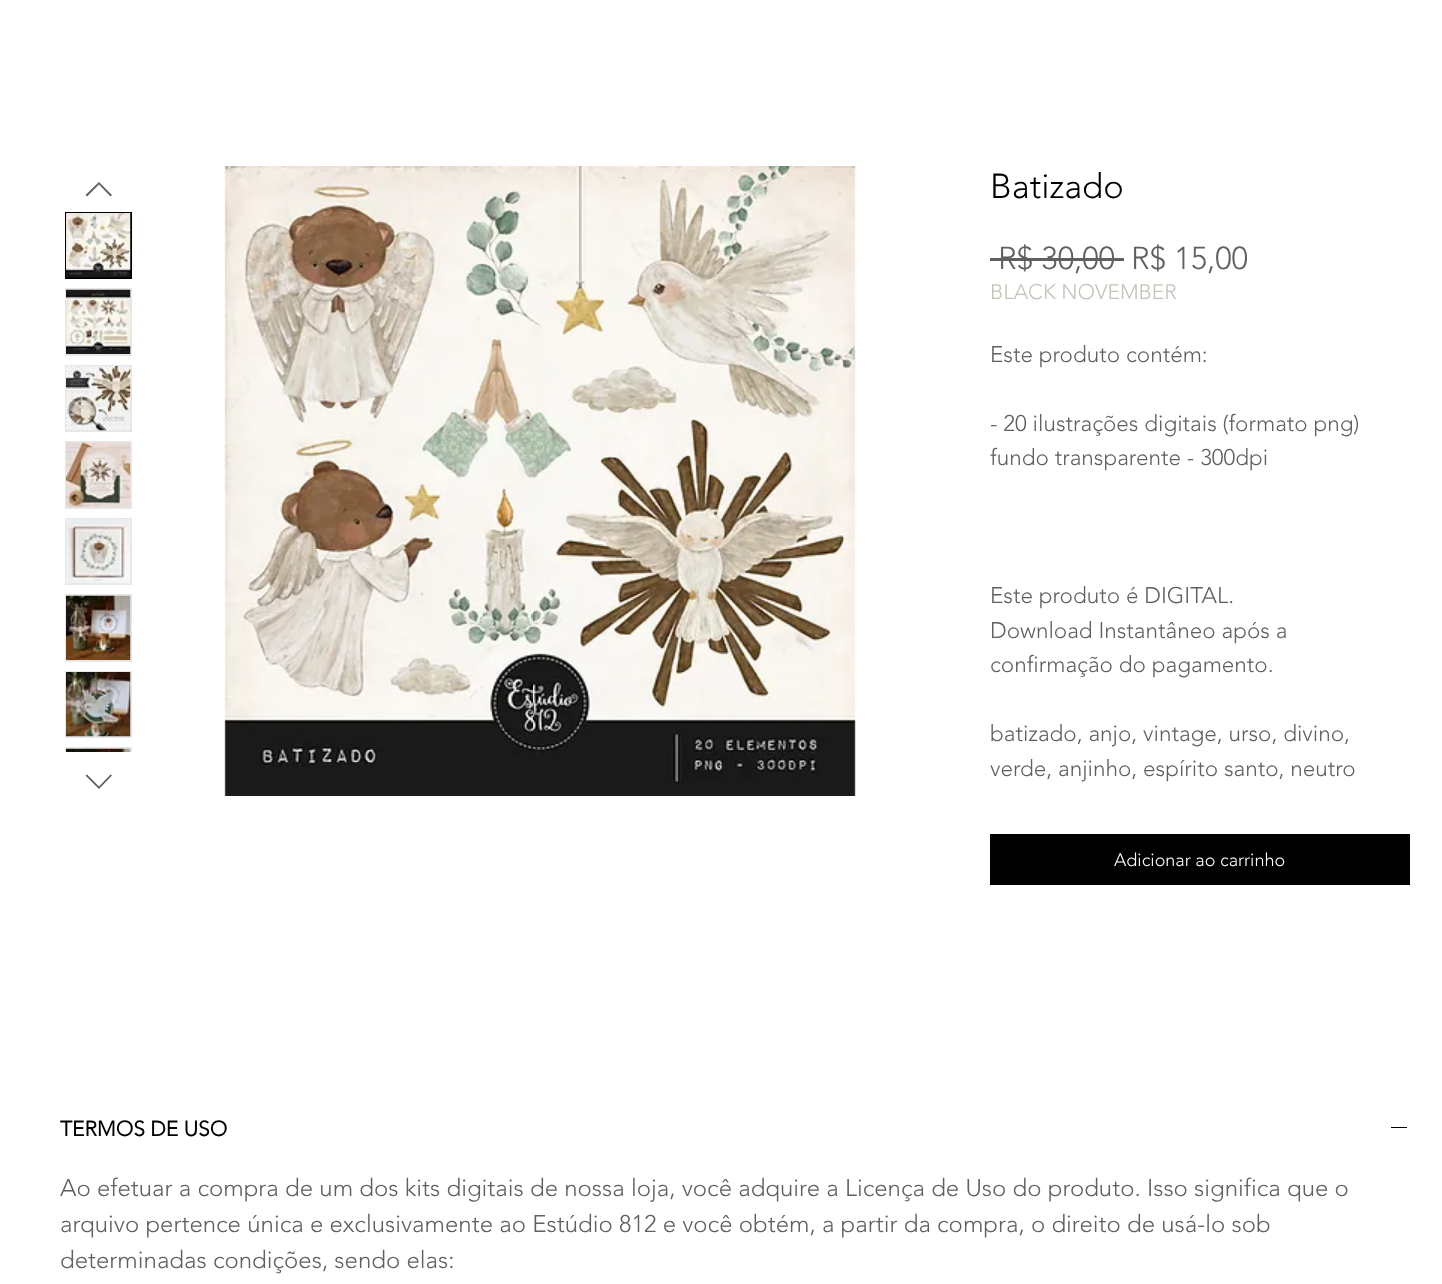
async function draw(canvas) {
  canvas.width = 1442;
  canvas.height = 1284;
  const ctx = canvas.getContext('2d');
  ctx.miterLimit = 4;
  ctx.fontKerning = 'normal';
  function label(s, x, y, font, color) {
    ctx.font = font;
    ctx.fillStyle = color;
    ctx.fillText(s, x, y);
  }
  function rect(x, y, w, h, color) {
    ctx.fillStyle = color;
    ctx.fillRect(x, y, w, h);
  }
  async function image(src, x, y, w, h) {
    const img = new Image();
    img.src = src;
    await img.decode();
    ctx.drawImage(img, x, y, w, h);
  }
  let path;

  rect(0, 0, 1442, 1284, '#fff');
  ctx.fillStyle = '#616060';
  path = new Path2D('M99 182L112 195L110.5 196.5L99 184.5L87 196.5L85.5 195Z');
  ctx.fill(path, 'evenodd');
  ctx.strokeStyle = '#000';
  ctx.lineWidth = 2;
  ctx.strokeRect(66, 213, 65, 65);
  await image('assets/img1.png', 66, 213, 65, 65);
  ctx.strokeStyle = '#e8e6e6';
  ctx.strokeRect(66, 289, 65, 66);
  await image('assets/img2.png', 66, 289, 65, 65);
  ctx.strokeRect(66, 366, 65, 65);
  await image('assets/img3.png', 66, 366, 65, 65);
  ctx.strokeRect(66, 442, 65, 66);
  await image('assets/img4.png', 66, 442, 65, 65);
  ctx.strokeRect(66, 519, 65, 65);
  await image('assets/img5.png', 66, 519, 65, 65);
  ctx.strokeRect(66, 595, 65, 66);
  await image('assets/img6.png', 66, 595, 65, 65);
  ctx.strokeRect(66, 672, 65, 65);
  await image('assets/img7.png', 66, 672, 65, 65);
  path = new Path2D('M110.5 774.5L112 775.5L99 789L85.5 775.5L87 774.5L99 786.5Z');
  ctx.fill(path, 'evenodd');
  ctx.save();
  ctx.beginPath();
  ctx.rect(59, 206, 79, 546);
  ctx.clip();
  ctx.strokeRect(66, 748, 65, 66);
  ctx.restore();
  await image('assets/img8.png', 66, 748, 65, 4);
  await image('assets/img9.png', 224, 166, 632, 630);
  label('Batizado', 990, 198, '300 34.5px "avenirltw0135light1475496"', '#000');
  label('R$ 30,00', 998, 269, '300 31.5px "avenirltw0135light1475496"', '#616060');
  rect(990, 258, 134, 3, '#616060');
  label('R$ 15,00', 1131, 269, '300 31.5px "avenirltw0135light1475496"', '#616060');
  label('BLACK NOVEMBER', 990, 299, '300 21px "avenirltw0135light1475496"', '#bfc6b8');
  label('Este produto contém:', 990, 362, '300 22.5px "avenirltw0135light1475496"', '#616060');
  label('- 20 ilustrações digitais (formato png)', 990, 431, '300 22.5px "avenirltw0135light1475496"', '#616060');
  label('fundo transparente - 300dpi', 990, 465, '300 22.5px "avenirltw0135light1475496"', '#616060');
  label('Este produto é DIGITAL.', 990, 603, '300 22.5px "avenirltw0135light1475496"', '#616060');
  label('Download Instantâneo após a', 990, 638, '300 22.5px "avenirltw0135light1475496"', '#616060');
  label('confirmação do pagamento.', 990, 672, '300 22.5px "avenirltw0135light1475496"', '#616060');
  label('batizado, anjo, vintage, urso, divino,', 990, 741, '300 22.5px "avenirltw0135light1475496"', '#616060');
  label('verde, anjinho, espírito santo, neutro', 990, 776, '300 22.5px "avenirltw0135light1475496"', '#616060');
  rect(990, 834, 420, 51, '#000');
  label('Adicionar ao carrinho', 1114, 866, '300 18px "avenirltw0135light1475496"', '#fff');
  label('TERMOS DE USO', 60, 1136, 'bold 21px "avenirltw0135light1475496"', '#000');
  rect(1391, 1127, 16, 1, '#000');
  label('Ao efetuar a compra de um dos kits digitais de nossa loja, você adquire a Licença de Uso do produto. Isso significa que o', 60, 1196, '300 24px "avenirltw0135light1475496"', '#616060');
  label('arquivo pertence única e exclusivamente ao Estúdio 812 e você obtém, a partir da compra, o direito de usá-lo sob', 60, 1232, '300 24px "avenirltw0135light1475496"', '#616060');
  label('determinadas condições, sendo elas:', 60, 1268, '300 24px "avenirltw0135light1475496"', '#616060');
}

draw(document.querySelector('canvas'));
